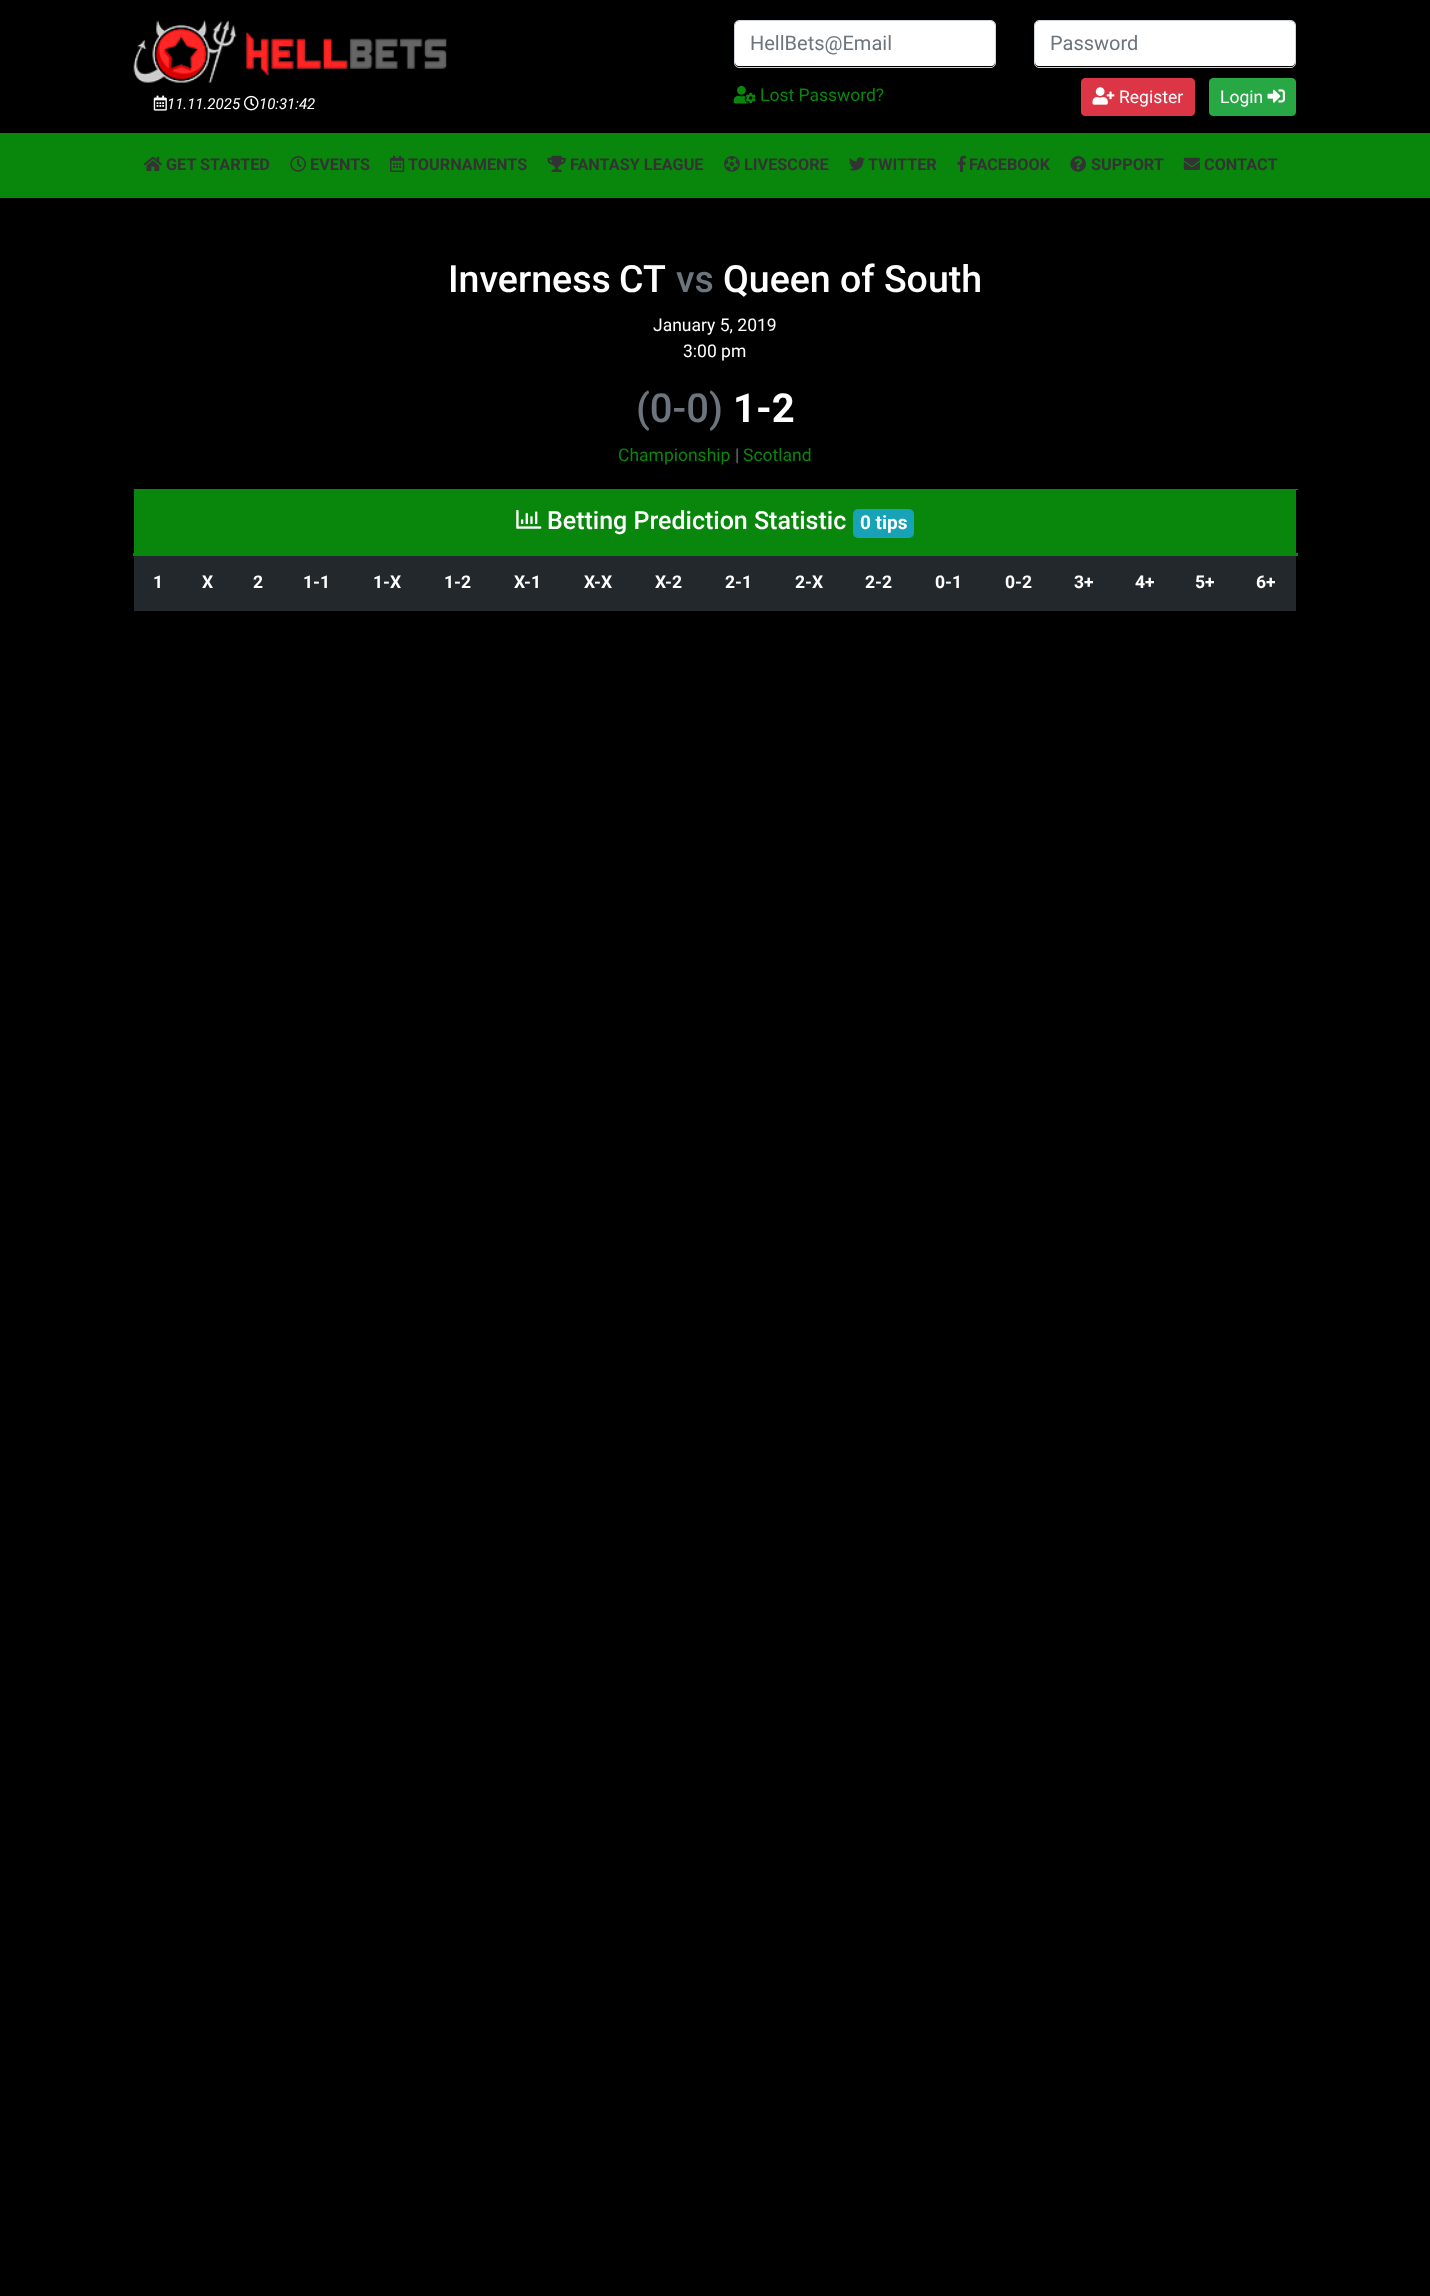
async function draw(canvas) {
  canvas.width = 1430;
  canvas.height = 2296;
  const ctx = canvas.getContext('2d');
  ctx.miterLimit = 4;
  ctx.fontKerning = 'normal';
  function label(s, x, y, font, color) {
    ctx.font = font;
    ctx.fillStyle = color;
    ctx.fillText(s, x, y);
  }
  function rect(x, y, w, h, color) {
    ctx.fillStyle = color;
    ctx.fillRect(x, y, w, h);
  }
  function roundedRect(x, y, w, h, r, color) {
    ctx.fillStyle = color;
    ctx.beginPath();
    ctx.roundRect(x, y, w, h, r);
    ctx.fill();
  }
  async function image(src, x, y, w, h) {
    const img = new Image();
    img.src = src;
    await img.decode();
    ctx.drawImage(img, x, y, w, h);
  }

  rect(0, 0, 1430, 2296, '#000');
  await image('assets/img1.png', 133, 20, 314, 63);
  await image('assets/img2.png', 153, 95, 14, 16);
  label('11.11.2025', 167, 109, 'italic 15px Roboto', '#fff');
  await image('assets/img3.png', 244, 95, 15, 16);
  label('10:31:42', 259, 109, 'italic 15px Roboto', '#fff');
  roundedRect(735, 21, 260, 45, 4, '#fff');
  ctx.beginPath();
  ctx.roundRect(734.5, 20.5, 261, 47, 4.5);
  ctx.strokeStyle = '#ced4da';
  ctx.stroke();
  label('HellBets@Email', 750, 50, '20px Roboto', '#6c757d');
  roundedRect(1035, 21, 260, 45, 4, '#fff');
  ctx.beginPath();
  ctx.roundRect(1034.5, 20.5, 261, 47, 4.5);
  ctx.stroke();
  label('Password', 1050, 50, '20px Roboto', '#6c757d');
  await image('assets/img4.png', 733, 85, 23, 19);
  label('Lost Password?', 760, 101, '17.5px Roboto', '#08870c');
  ctx.fillStyle = '#dc3545';
  ctx.beginPath();
  ctx.roundRect(1081.5, 78.5, 113, 37, 3.5);
  ctx.fill();
  ctx.strokeStyle = '#dc3545';
  ctx.stroke();
  await image('assets/img5.png', 1092, 87, 23, 18);
  label('Register', 1119, 103, '17.5px Roboto', '#fff');
  ctx.fillStyle = '#28a745';
  ctx.beginPath();
  ctx.roundRect(1209.5, 78.5, 86, 37, 3.5);
  ctx.fill();
  ctx.strokeStyle = '#28a745';
  ctx.stroke();
  label('Login', 1220, 103, '17.5px Roboto', '#fff');
  await image('assets/img6.png', 1267, 89, 18, 14);
  rect(0, 133, 1430, 65, '#08870c');
  await image('assets/img7.png', 143, 156, 19, 15);
  label('GET STARTED', 166, 170, 'bold 16.25px Roboto', '#333');
  await image('assets/img8.png', 290, 156, 16, 16);
  label('EVENTS', 310, 170, 'bold 16.25px Roboto', '#333');
  await image('assets/img9.png', 390, 155, 15, 17);
  label('TOURNAMENTS', 408, 170, 'bold 16.25px Roboto', '#333');
  await image('assets/img10.png', 547, 155, 19, 17);
  label('FANTASY LEAGUE', 570, 170, 'bold 16.25px Roboto', '#333');
  await image('assets/img11.png', 724, 156, 16, 16);
  label('LIVESCORE', 744, 170, 'bold 16.25px Roboto', '#333');
  await image('assets/img12.png', 849, 157, 16, 14);
  label('TWITTER', 868, 170, 'bold 16.25px Roboto', '#333');
  await image('assets/img13.png', 957, 155, 9, 17);
  label('FACEBOOK', 969, 170, 'bold 16.25px Roboto', '#333');
  await image('assets/img14.png', 1070, 156, 16, 16);
  label('SUPPORT', 1091, 170, 'bold 16.25px Roboto', '#333');
  await image('assets/img15.png', 1183, 157, 17, 13);
  label('CONTACT', 1204, 170, 'bold 16.25px Roboto', '#333');
  ctx.wordSpacing = '-1px';
  label('Inverness CT', 448, 292, '500 37.5px Roboto', '#fff');
  ctx.wordSpacing = '0px';
  label('vs', 676, 292, '500 37.5px Roboto', '#6c757d');
  label('Queen of South', 723, 292, '500 37.5px Roboto', '#fff');
  label('January 5, 2019', 653, 331, '17.5px Roboto', '#fff');
  label('3:00 pm', 683, 357, '17.5px Roboto', '#fff');
  label('(0-0)', 636, 422, '500 40px Roboto', '#6c757d');
  label('1-2', 733, 422, 'bold 40px Roboto', '#fff');
  label('Championship', 618, 461, '17.5px Roboto', '#08870c');
  label('|', 735, 461, '17.5px Roboto', '#6c757d');
  label('Scotland', 743, 461, '17.5px Roboto', '#08870c');
  rect(134, 490, 1162, 63, '#08870c');
  rect(134, 489, 1164, 1, '#08870c');
  rect(133, 553, 1165, 3, '#08870c');
  await image('assets/img16.png', 516, 510, 26, 19);
  label('Betting Prediction Statistic', 547, 529, '500 25px Roboto', '#fff');
  roundedRect(853, 509, 61, 29, 5, '#17a2b8');
  label('0 tips', 860, 529, 'bold 19px Roboto', '#fff');
  rect(134, 556, 1162, 55, '#23282d');
  label('1', 153, 588, 'bold 17.5px Roboto', '#fff');
  label('X', 202, 588, 'bold 17.5px Roboto', '#fff');
  label('2', 253, 588, 'bold 17.5px Roboto', '#fff');
  label('1-1', 303, 588, 'bold 17.5px Roboto', '#fff');
  label('1-X', 373, 588, 'bold 17.5px Roboto', '#fff');
  label('1-2', 444, 588, 'bold 17.5px Roboto', '#fff');
  label('X-1', 514, 588, 'bold 17.5px Roboto', '#fff');
  label('X-X', 584, 588, 'bold 17.5px Roboto', '#fff');
  label('X-2', 655, 588, 'bold 17.5px Roboto', '#fff');
  label('2-1', 725, 588, 'bold 17.5px Roboto', '#fff');
  label('2-X', 795, 588, 'bold 17.5px Roboto', '#fff');
  label('2-2', 865, 588, 'bold 17.5px Roboto', '#fff');
  label('0-1', 935, 588, 'bold 17.5px Roboto', '#fff');
  label('0-2', 1005, 588, 'bold 17.5px Roboto', '#fff');
  label('3+', 1074, 588, 'bold 17.5px Roboto', '#fff');
  label('4+', 1135, 588, 'bold 17.5px Roboto', '#fff');
  label('5+', 1195, 588, 'bold 17.5px Roboto', '#fff');
  label('6+', 1256, 588, 'bold 17.5px Roboto', '#fff');
}

draw(document.querySelector('canvas'));
